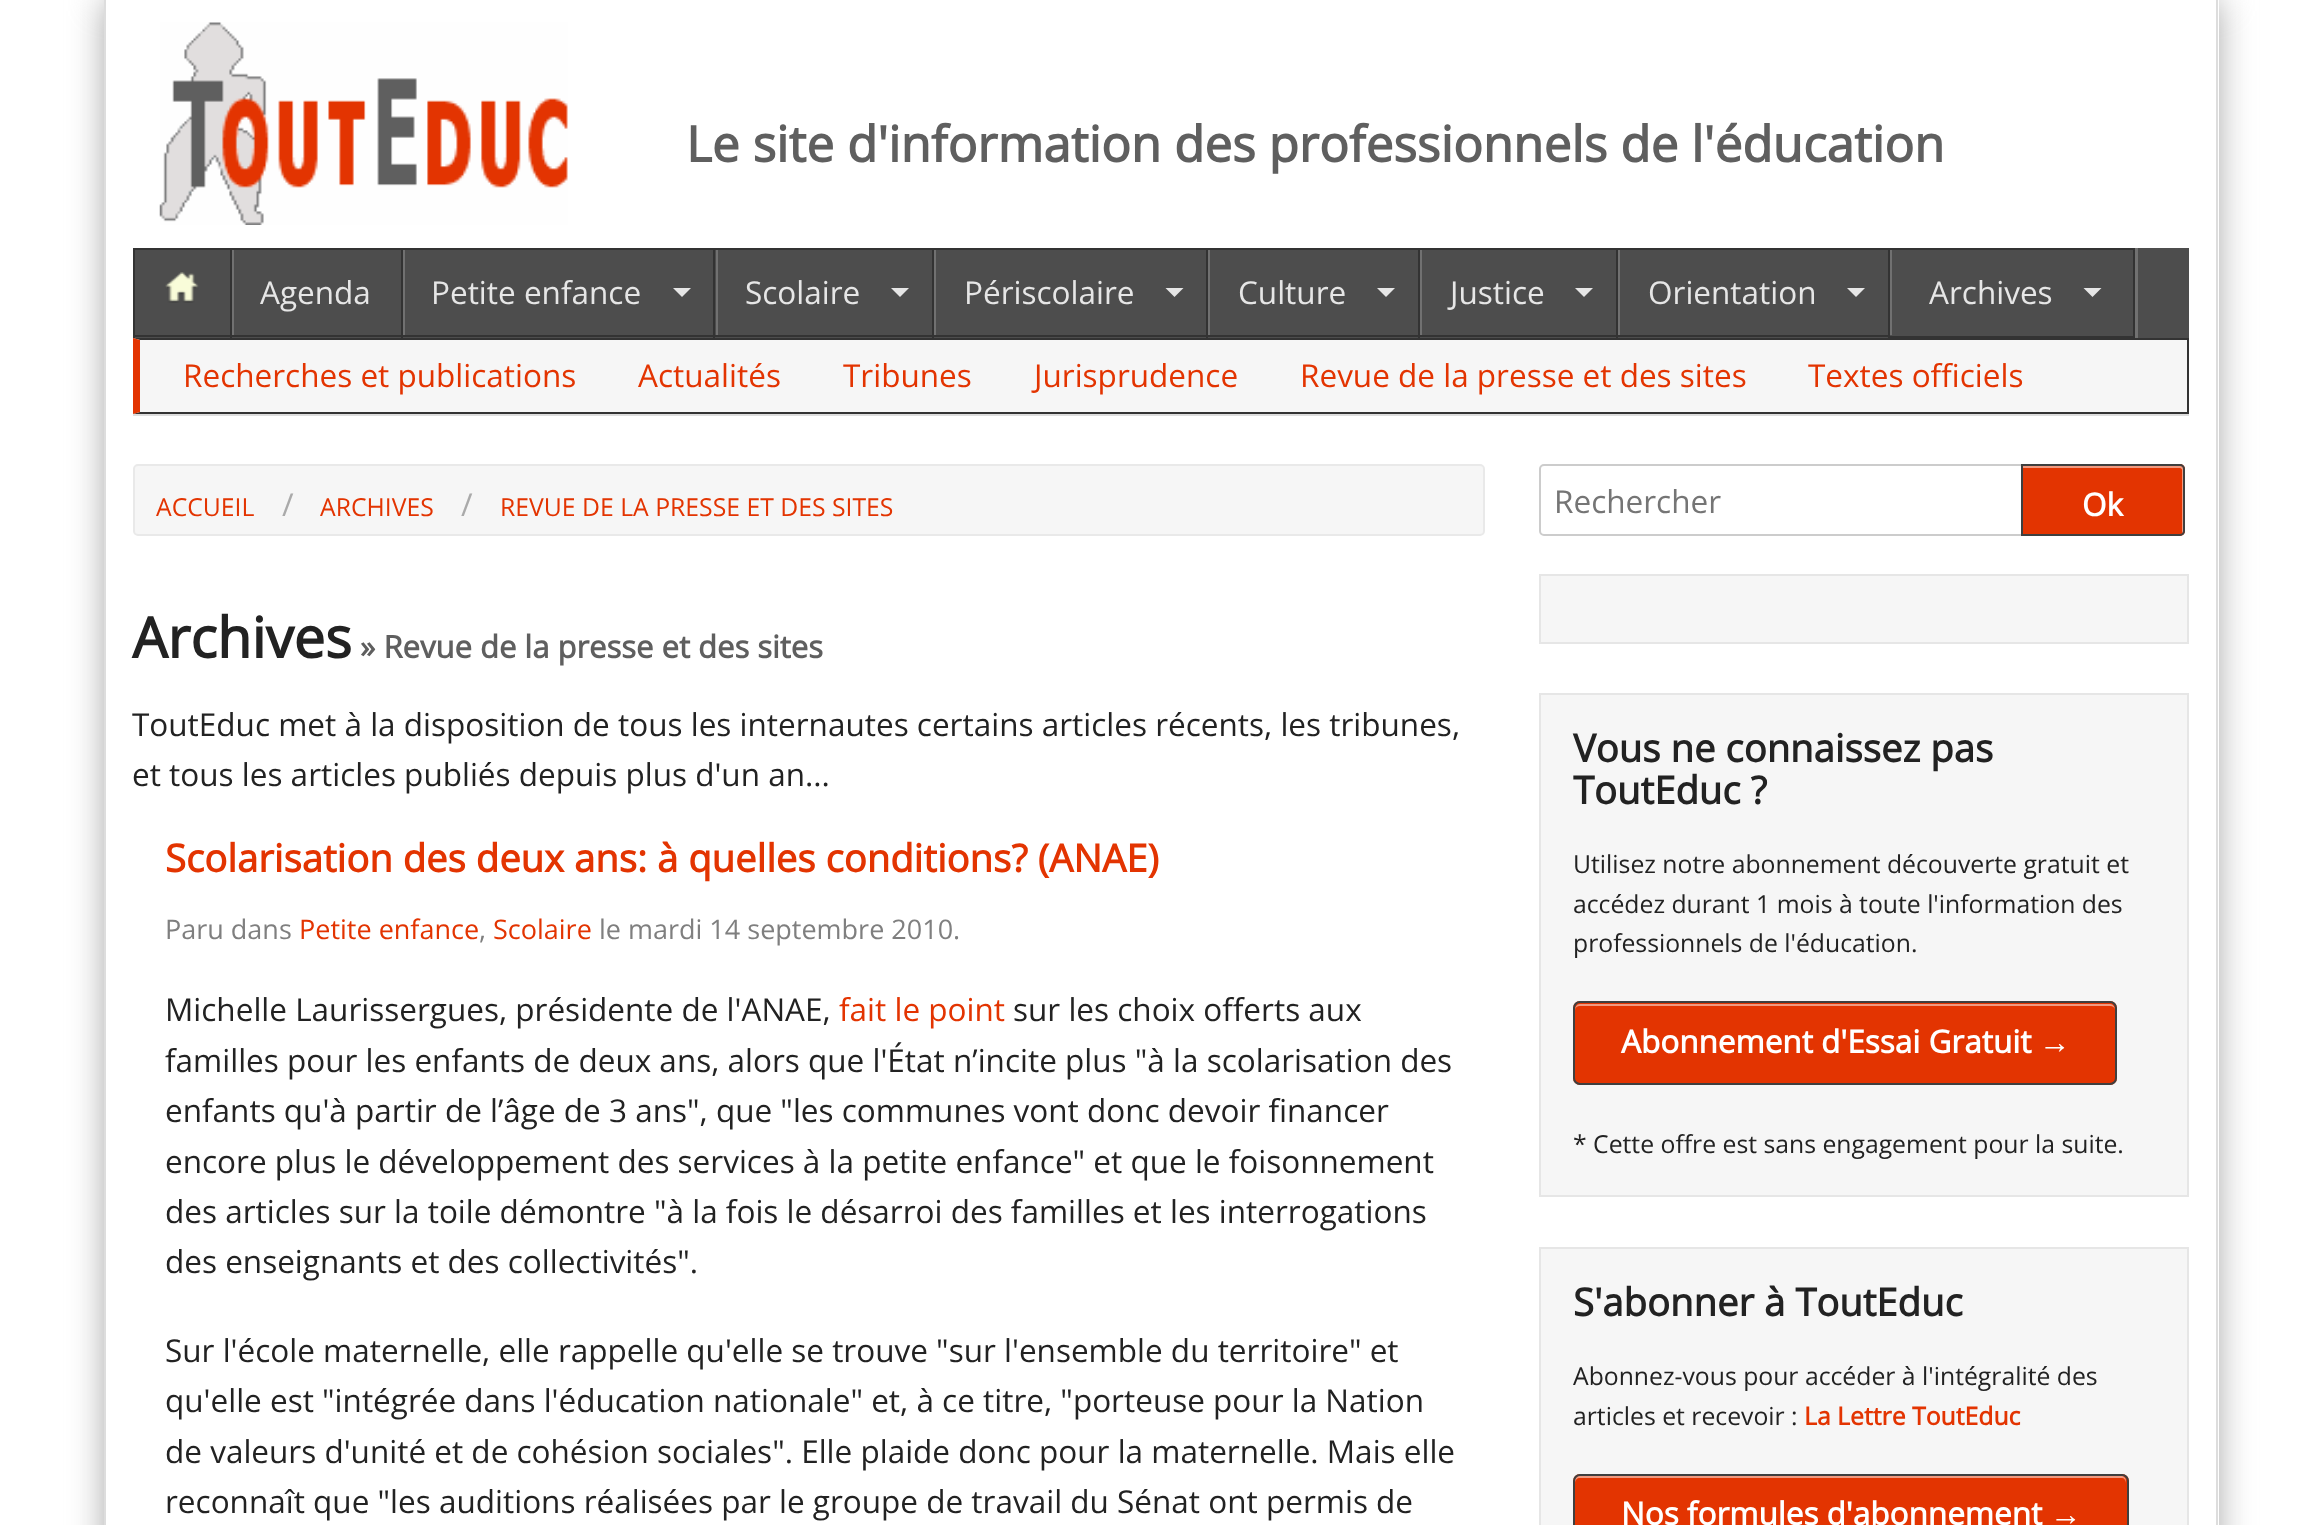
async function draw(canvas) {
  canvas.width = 2318;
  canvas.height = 1525;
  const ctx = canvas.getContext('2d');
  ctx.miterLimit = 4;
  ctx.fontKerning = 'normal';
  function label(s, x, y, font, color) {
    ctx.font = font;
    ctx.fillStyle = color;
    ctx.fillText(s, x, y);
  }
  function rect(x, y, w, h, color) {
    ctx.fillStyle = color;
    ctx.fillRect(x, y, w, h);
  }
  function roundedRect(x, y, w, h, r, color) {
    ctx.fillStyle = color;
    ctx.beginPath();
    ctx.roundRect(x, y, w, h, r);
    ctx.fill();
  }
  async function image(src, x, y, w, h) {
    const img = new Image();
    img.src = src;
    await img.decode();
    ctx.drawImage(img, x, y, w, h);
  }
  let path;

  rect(0, 0, 2318, 1525, '#fff');
  ctx.save();
  path = new Path2D('M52 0H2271V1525H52ZM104 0H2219V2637H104Z');
  ctx.clip(path, 'evenodd');
  ctx.fillStyle = '#aaa';
  ctx.filter = 'blur(17px)';
  ctx.beginPath();
  ctx.rect(104, 0, 2115, 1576);
  ctx.fill();
  ctx.filter = 'none';
  ctx.restore();
  rect(2216, 0, 2, 1525, '#ddd');
  rect(104, 0, 2, 1525, '#ddd');
  await image('assets/img1.png', 159, 22, 409, 203);
  label('Le site d\'information des professionnels de l\'éducation', 686, 162, 'bold 49.5px Open Sans', '#5f5f5f');
  rect(135, 248, 2054, 90, '#4d4d4d');
  rect(133, 248, 1755, 2, '#333');
  rect(133, 335, 1755, 2, '#333');
  rect(133, 248, 2, 90, '#333');
  await image('assets/img2.png', 165, 272, 34, 31);
  rect(232, 250, 2, 85, '#717171');
  rect(230, 248, 2, 90, '#333');
  label('Agenda', 260, 304, '31.5px Open Sans', '#e6e6e6');
  rect(403, 250, 2, 85, '#717171');
  rect(401, 248, 2, 90, '#333');
  label('Petite enfance', 431, 304, '31.5px Open Sans', '#e6e6e6');
  path = new Path2D('M673 288H691L682 297Z');
  ctx.fill(path);
  rect(716, 250, 2, 85, '#717171');
  rect(713, 248, 2, 90, '#333');
  label('Scolaire', 745, 304, '31.5px Open Sans', '#e6e6e6');
  path = new Path2D('M891 288H909L900 297Z');
  ctx.fill(path);
  rect(934, 250, 2, 85, '#717171');
  rect(932, 248, 2, 90, '#333');
  label('Périscolaire', 964, 304, '31.5px Open Sans', '#e6e6e6');
  path = new Path2D('M1165.5 288H1183.5L1174.5 297Z');
  ctx.fill(path);
  rect(1208, 250, 2, 85, '#717171');
  rect(1206, 248, 2, 90, '#333');
  label('Culture', 1238, 304, '31.5px Open Sans', '#e6e6e6');
  path = new Path2D('M1377 288H1395L1386 297Z');
  ctx.fill(path);
  rect(1420, 250, 2, 85, '#717171');
  rect(1418, 248, 2, 90, '#333');
  label('Justice', 1450, 304, '31.5px Open Sans', '#e6e6e6');
  path = new Path2D('M1575 288H1593L1584 297Z');
  ctx.fill(path);
  rect(1618, 250, 2, 85, '#717171');
  rect(1616, 248, 2, 90, '#333');
  label('Orientation', 1648, 304, '31.5px Open Sans', '#e6e6e6');
  path = new Path2D('M1847 288H1865L1856 297Z');
  ctx.fill(path);
  ctx.fillStyle = '#717171';
  path = new Path2D('M1890 338H2138V248H2135V338Z');
  ctx.fill(path);
  rect(1890, 250, 2, 85, '#717171');
  ctx.strokeStyle = '#333';
  ctx.lineWidth = 2;
  ctx.strokeRect(1889, 249, 245, 88);
  label('Archives', 1929, 304, '31.5px Open Sans', '#e6e6e6');
  path = new Path2D('M2083.5 288H2101.5L2092.5 297Z');
  ctx.fill(path);
  rect(140, 340, 2047, 72, '#f6f6f6');
  ctx.fillStyle = '#333';
  path = new Path2D('M133 338H2189L2187 340H140Z');
  ctx.fill(path);
  rect(2187, 338, 2, 76, '#333');
  path = new Path2D('M2189 414H133L140 412H2187Z');
  ctx.fill(path);
  ctx.fillStyle = '#e33401';
  path = new Path2D('M133 414V338L140 340V412Z');
  ctx.fill(path);
  label('Recherches et publications', 183, 387, '31.5px Open Sans', '#e33401');
  label('Actualités', 638, 387, '31.5px Open Sans', '#e33401');
  label('Tribunes', 843, 387, '31.5px Open Sans', '#e33401');
  label('Jurisprudence', 1034, 387, '31.5px Open Sans', '#e33401');
  label('Revue de la presse et des sites', 1300, 387, '31.5px Open Sans', '#e33401');
  label('Textes officiels', 1808, 387, '31.5px Open Sans', '#e33401');
  rect(133, 414, 2056, 2, '#ddd');
  ctx.fillStyle = '#f6f6f6';
  ctx.beginPath();
  ctx.roundRect(134, 465, 1350, 70, 4);
  ctx.fill();
  ctx.strokeStyle = '#e9e9e9';
  ctx.stroke();
  label('ACCUEIL', 156, 516, '24.75px Open Sans', '#e33401');
  label('/', 282, 516, '31.5px Open Sans', '#aaa');
  label('ARCHIVES', 320, 516, '24.75px Open Sans', '#e33401');
  label('/', 461, 516, '31.5px Open Sans', '#aaa');
  label('REVUE DE LA PRESSE ET DES SITES', 500, 516, '24.75px Open Sans', '#e33401');
  ctx.beginPath();
  ctx.roundRect(1540, 465, 484, 70, 4);
  ctx.strokeStyle = '#ccc';
  ctx.stroke();
  label('Rechercher', 1554, 513, '31.5px Open Sans', '#757575');
  ctx.fillStyle = '#e33401';
  ctx.beginPath();
  ctx.roundRect(2021, 464, 164, 72, [0, 5, 5, 0]);
  ctx.fill();
  ctx.fillStyle = '#f19a80';
  path = new Path2D('M2023 468H2180C2181 468 2182 469 2182 470V533C2183 532 2183 532 2183 531V468C2183 467 2182 466 2181 466H2023Z');
  ctx.fill(path);
  ctx.beginPath();
  ctx.roundRect(2022, 465, 162, 70, [0, 4, 4, 0]);
  ctx.strokeStyle = '#3f3f3f';
  ctx.stroke();
  label('Ok', 2082, 516, 'bold 31.5px Open Sans', '#fff');
  label('Archives', 132, 658, 'bold 56px Open Sans', '#222');
  label('» Revue de la presse et des sites', 360, 658, 'bold 31px Open Sans', '#5f5f5f');
  label('ToutEduc met à la disposition de tous les internautes certains articles récents, les tribunes,', 132, 736, '31.5px Open Sans', '#222');
  label('et tous les articles publiés depuis plus d\'un an...', 132, 786, '31.5px Open Sans', '#222');
  label('Scolarisation des deux ans: à quelles conditions? (ANAE)', 165, 872, 'bold 38.25px Open Sans', '#e33401');
  label('Paru dans', 165, 939, '27px Open Sans', '#7f7f7f');
  label('Petite enfance', 299, 939, '27px Open Sans', '#e33401');
  label(',', 479, 939, '27px Open Sans', '#7f7f7f');
  label('Scolaire', 493, 939, '27px Open Sans', '#e33401');
  label('le mardi 14 septembre 2010.', 599, 939, '27px Open Sans', '#7f7f7f');
  label('Michelle Laurissergues, présidente de l\'ANAE,', 165, 1021, '31.5px Open Sans', '#222');
  label('fait le point', 839, 1021, '31.5px Open Sans', '#e33401');
  label('sur les choix offerts aux', 1013, 1021, '31.5px Open Sans', '#222');
  label('familles pour les enfants de deux ans, alors que l\'État n’incite plus "à la scolarisation des', 165, 1072, '31.5px Open Sans', '#222');
  label('enfants qu\'à partir de l’âge de 3 ans", que "les communes vont donc devoir financer', 165, 1122, '31.5px Open Sans', '#222');
  label('encore plus le développement des services à la petite enfance" et que le foisonnement', 165, 1173, '31.5px Open Sans', '#222');
  label('des articles sur la toile démontre "à la fois le désarroi des familles et les interrogations', 165, 1223, '31.5px Open Sans', '#222');
  label('des enseignants et des collectivités".', 165, 1273, '31.5px Open Sans', '#222');
  label('Sur l\'école maternelle, elle rappelle qu\'elle se trouve "sur l\'ensemble du territoire" et', 165, 1362, '31.5px Open Sans', '#222');
  label('qu\'elle est "intégrée dans l\'éducation nationale" et, à ce titre, "porteuse pour la Nation', 165, 1412, '31.5px Open Sans', '#222');
  label('de valeurs d\'unité et de cohésion sociales". Elle plaide donc pour la maternelle. Mais elle', 165, 1463, '31.5px Open Sans', '#222');
  label('reconnaît que "les auditions réalisées par le groupe de travail du Sénat ont permis de', 165, 1513, '31.5px Open Sans', '#222');
  ctx.fillStyle = '#f6f6f6';
  ctx.beginPath();
  ctx.rect(1540, 575, 648, 68);
  ctx.fill();
  ctx.strokeStyle = '#e6e6e6';
  ctx.stroke();
  ctx.beginPath();
  ctx.rect(1540, 694, 648, 502);
  ctx.fill();
  ctx.stroke();
  label('Vous ne connaissez pas', 1573, 762, 'bold 38.25px Open Sans', '#222');
  label('ToutEduc ?', 1573, 804, 'bold 38.25px Open Sans', '#222');
  label('Utilisez notre abonnement découverte gratuit et', 1573, 873, '24.75px Open Sans', '#222');
  label('accédez durant 1 mois à toute l\'information des', 1573, 913, '24.75px Open Sans', '#222');
  label('professionnels de l\'éducation.', 1573, 952, '24.75px Open Sans', '#222');
  roundedRect(1573, 1001, 544, 84, 7, '#e33401');
  ctx.fillStyle = '#f19a80';
  path = new Path2D('M1580 1006H2110C2113 1006 2115 1008 2115 1010C2115 1007 2113 1004 2110 1004H1580C1577 1004 1575 1007 1575 1010C1575 1008 1577 1006 1580 1006Z');
  ctx.fill(path);
  ctx.beginPath();
  ctx.roundRect(1574, 1002, 542, 82, 6);
  ctx.strokeStyle = '#3f3f3f';
  ctx.stroke();
  label('Abonnement d\'Essai Gratuit', 1621, 1053, 'bold 31.5px Open Sans', '#fff');
  label('→', 2039, 1053, 'bold 31.5px Liberation Serif', '#fff');
  label('* Cette offre est sans engagement pour la suite.', 1573, 1153, '24.75px Open Sans', '#222');
  ctx.fillStyle = '#f6f6f6';
  ctx.beginPath();
  ctx.rect(1540, 1248, 648, 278);
  ctx.fill();
  ctx.strokeStyle = '#e6e6e6';
  ctx.stroke();
  label('S\'abonner à ToutEduc', 1573, 1316, 'bold 38.25px Open Sans', '#222');
  label('Abonnez-vous pour accéder à l\'intégralité des', 1573, 1385, '24.75px Open Sans', '#222');
  label('articles et recevoir :', 1573, 1425, '24.75px Open Sans', '#222');
  label('La Lettre ToutEduc', 1804, 1425, 'bold 24.75px Open Sans', '#e33401');
  roundedRect(1573, 1474, 556, 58, 7, '#e33401');
  ctx.fillStyle = '#f19a80';
  path = new Path2D('M1580 1478H2122C2124 1478 2126 1480 2126 1483V1481C2126 1478 2124 1476 2121 1476H1580C1577 1476 1575 1478 1575 1481V1483C1575 1480 1577 1478 1580 1478Z');
  ctx.fill(path);
  ctx.beginPath();
  ctx.roundRect(1574, 1475, 554, 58, 6);
  ctx.strokeStyle = '#3f3f3f';
  ctx.stroke();
  label('Nos formules d\'abonnement', 1621, 1525, 'bold 31.5px Open Sans', '#fff');
  label('→', 2050, 1525, 'bold 31.5px Liberation Serif', '#fff');
}

draw(document.querySelector('canvas'));
